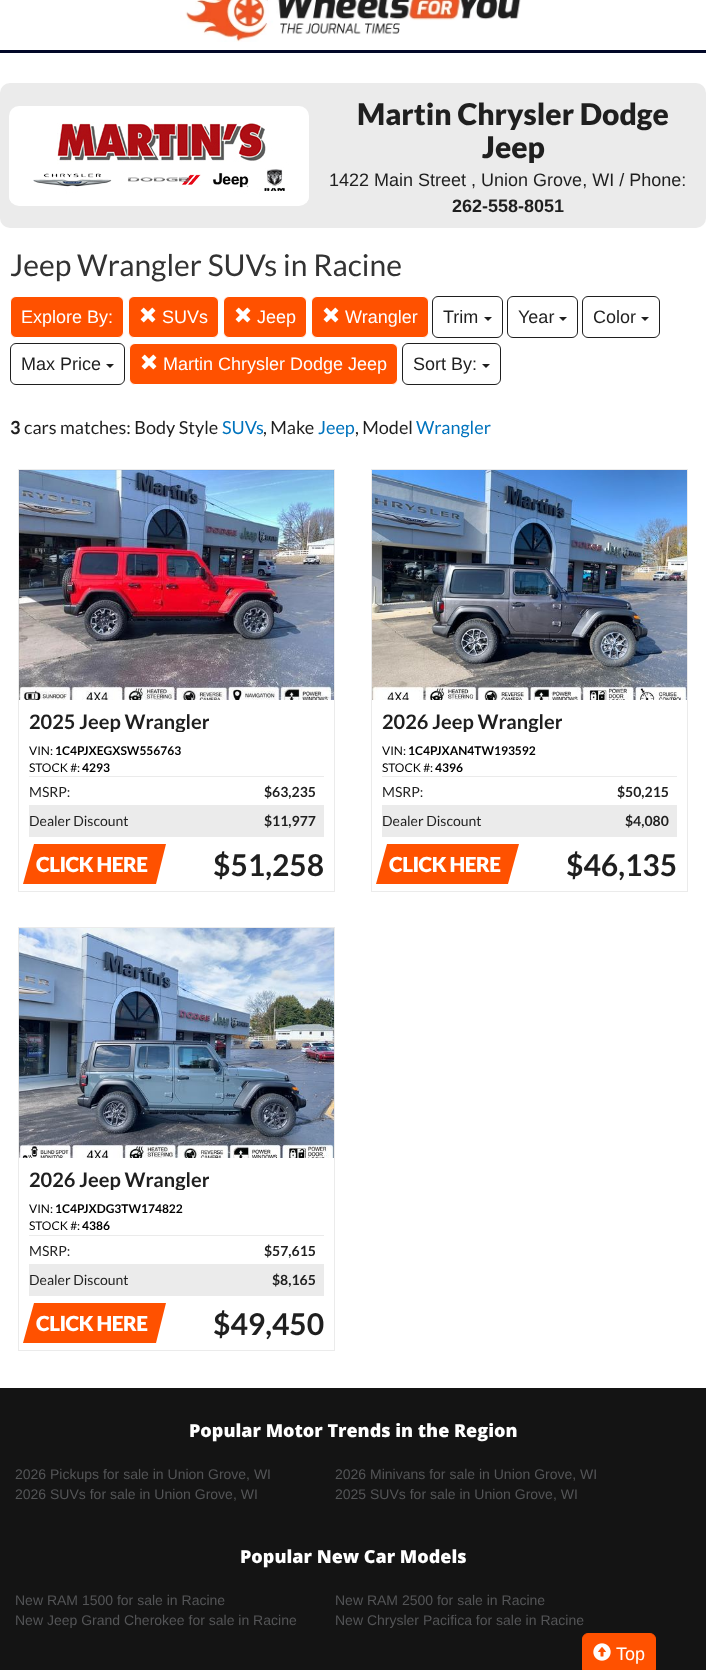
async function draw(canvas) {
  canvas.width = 706;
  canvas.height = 1670;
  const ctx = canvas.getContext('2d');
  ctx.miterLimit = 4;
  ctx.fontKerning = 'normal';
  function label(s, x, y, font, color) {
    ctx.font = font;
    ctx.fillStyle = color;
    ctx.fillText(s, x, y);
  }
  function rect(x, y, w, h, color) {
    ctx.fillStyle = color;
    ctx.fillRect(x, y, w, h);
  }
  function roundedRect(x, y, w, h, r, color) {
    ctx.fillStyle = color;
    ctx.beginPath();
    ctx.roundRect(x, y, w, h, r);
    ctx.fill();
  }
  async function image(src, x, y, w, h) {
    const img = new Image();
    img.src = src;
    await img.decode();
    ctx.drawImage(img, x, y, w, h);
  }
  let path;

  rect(0, 0, 706, 1670, '#fff');
  rect(0, 50, 706, 3, '#010727');
  await image('assets/img1.png', 180, 0, 341, 42);
  roundedRect(0, 83, 706, 145, 10, '#ebebeb');
  roundedRect(9, 106, 300, 100, 10, '#fff');
  await image('assets/img2.png', 9, 122, 300, 81);
  label('Martin Chrysler Dodge', 357, 125, '900 30px Lato', '#1f1f1f');
  label('Jeep', 482, 158, '900 30px Lato', '#1f1f1f');
  label('1422 Main Street , Union Grove, WI / Phone:', 329, 186, '18px Liberation Sans', '#1f1f1f');
  label('262-558-8051', 452, 212, 'bold 18px Liberation Sans', '#1f1f1f');
  label('Jeep Wrangler SUVs in Racine', 10, 276, '30px Lato', '#333');
  ctx.fillStyle = '#ff5100';
  ctx.beginPath();
  ctx.roundRect(10.5, 296.5, 113, 41, 5.5);
  ctx.fill();
  ctx.strokeStyle = '#fff';
  ctx.stroke();
  label('Explore By:', 21, 323, '18px Liberation Sans', '#fff');
  ctx.fillStyle = '#ff5100';
  ctx.beginPath();
  ctx.roundRect(128.5, 296.5, 90, 41, 5.5);
  ctx.fill();
  ctx.stroke();
  await image('assets/img3.png', 140, 307, 16, 16);
  label('SUVs', 162, 323, '18px Liberation Sans', '#fff');
  ctx.fillStyle = '#ff5100';
  ctx.beginPath();
  ctx.roundRect(223.5, 296.5, 83, 41, 5.5);
  ctx.fill();
  ctx.stroke();
  await image('assets/img3.png', 235, 307, 16, 16);
  label('Jeep', 257, 323, '18px Liberation Sans', '#fff');
  ctx.fillStyle = '#ff5100';
  ctx.beginPath();
  ctx.roundRect(311.5, 296.5, 117, 41, 5.5);
  ctx.fill();
  ctx.stroke();
  await image('assets/img3.png', 323, 307, 16, 16);
  label('Wrangler', 345, 323, '18px Liberation Sans', '#fff');
  ctx.beginPath();
  ctx.roundRect(432.5, 296.5, 70, 41, 5.5);
  ctx.strokeStyle = '#1f1f1f';
  ctx.stroke();
  label('Trim', 443, 323, '18px Liberation Sans', '#1f1f1f');
  path = new Path2D('M484 317H492L488 321Z');
  ctx.fill(path);
  ctx.beginPath();
  ctx.roundRect(507.5, 296.5, 70, 41, 5.5);
  ctx.stroke();
  label('Year', 518, 323, '18px Liberation Sans', '#1f1f1f');
  path = new Path2D('M559 317H567L563 321Z');
  ctx.fill(path);
  ctx.beginPath();
  ctx.roundRect(582.5, 296.5, 77, 41, 5.5);
  ctx.stroke();
  label('Color', 593, 323, '18px Liberation Sans', '#1f1f1f');
  path = new Path2D('M641 317H649L645 321Z');
  ctx.fill(path);
  ctx.beginPath();
  ctx.roundRect(10.5, 343.5, 114, 41, 5.5);
  ctx.stroke();
  label('Max Price', 21, 370, '18px Liberation Sans', '#1f1f1f');
  path = new Path2D('M106 364H114L110 368Z');
  ctx.fill(path);
  ctx.fillStyle = '#ff5100';
  ctx.beginPath();
  ctx.roundRect(129.5, 343.5, 268, 41, 5.5);
  ctx.fill();
  ctx.strokeStyle = '#fff';
  ctx.stroke();
  await image('assets/img3.png', 141, 354, 16, 16);
  label('Martin Chrysler Dodge Jeep', 163, 370, '18px Liberation Sans', '#fff');
  ctx.beginPath();
  ctx.roundRect(402.5, 343.5, 98, 41, 5.5);
  ctx.strokeStyle = '#1f1f1f';
  ctx.stroke();
  label('Sort By:', 413, 370, '18px Liberation Sans', '#1f1f1f');
  path = new Path2D('M482 364H490L486 368Z');
  ctx.fill(path);
  label('3', 10, 434, 'bold 18px Lato', '#1f1f1f');
  label('cars matches: Body Style', 24, 434, '18px Lato', '#1f1f1f');
  label('SUVs', 222, 434, '18px Lato', '#0073bd');
  label(', Make', 263, 434, '18px Lato', '#1f1f1f');
  label('Jeep', 318, 434, '18px Lato', '#0073bd');
  label(', Model', 355, 434, '18px Lato', '#1f1f1f');
  label('Wrangler', 416, 434, '18px Lato', '#0073bd');
  ctx.strokeStyle = '#ebebeb';
  ctx.strokeRect(18.5, 469.5, 316, 422);
  await image('assets/img4.png', 19, 470, 315, 230);
  ctx.save();
  ctx.beginPath();
  ctx.rect(29, 710, 180, 22);
  ctx.clip();
  label('2025 Jeep Wrangler', 29, 729, 'bold 20px Lato', '#1f1f1f');
  ctx.restore();
  label('VIN:', 29, 755, '12px Lato', '#000');
  label('1C4PJXEGXSW556763', 55, 755, 'bold 12px Lato', '#000');
  label('STOCK #:', 29, 772, '12px Lato', '#000');
  label('4293', 82, 772, 'bold 12px Lato', '#000');
  rect(29, 776, 295, 1, '#ebebeb');
  rect(29, 805, 295, 32, '#ebebeb');
  label('MSRP:', 29, 797, '14px Lato', '#1f1f1f');
  label('$63,235', 264, 797, 'bold 14px Lato', '#1f1f1f');
  label('Dealer Discount', 29, 826, '14px Lato', '#1f1f1f');
  label('$11,977', 264, 826, 'bold 14px Lato', '#1f1f1f');
  ctx.fillStyle = '#ff5100';
  path = new Path2D('M34 844H166L156 884H23Z');
  ctx.fill(path);
  ctx.letterSpacing = '-0.5px';
  label('CLICK HERE', 36, 872, '900 20.75px Lato', '#fff');
  ctx.letterSpacing = '0px';
  label('$51,258', 213, 876, 'bold 30px Lato', '#1f1f1f');
  ctx.strokeRect(371.5, 469.5, 316, 422);
  await image('assets/img5.png', 372, 470, 315, 230);
  ctx.save();
  ctx.beginPath();
  ctx.rect(382, 710, 180, 22);
  ctx.clip();
  label('2026 Jeep Wrangler', 382, 729, 'bold 20px Lato', '#1f1f1f');
  ctx.restore();
  label('VIN:', 382, 755, '12px Lato', '#000');
  label('1C4PJXAN4TW193592', 408, 755, 'bold 12px Lato', '#000');
  label('STOCK #:', 382, 772, '12px Lato', '#000');
  label('4396', 435, 772, 'bold 12px Lato', '#000');
  rect(382, 776, 295, 1, '#ebebeb');
  rect(382, 805, 295, 32, '#ebebeb');
  label('MSRP:', 382, 797, '14px Lato', '#1f1f1f');
  label('$50,215', 617, 797, 'bold 14px Lato', '#1f1f1f');
  label('Dealer Discount', 382, 826, '14px Lato', '#1f1f1f');
  label('$4,080', 625, 826, 'bold 14px Lato', '#1f1f1f');
  ctx.fillStyle = '#ff5100';
  path = new Path2D('M387 844H519L508 884H376Z');
  ctx.fill(path);
  ctx.letterSpacing = '-0.5px';
  label('CLICK HERE', 389, 872, '900 20.75px Lato', '#fff');
  ctx.letterSpacing = '0px';
  label('$46,135', 566, 876, 'bold 30px Lato', '#1f1f1f');
  ctx.strokeRect(18.5, 927.5, 316, 423);
  await image('assets/img6.png', 19, 928, 315, 230);
  ctx.save();
  ctx.beginPath();
  ctx.rect(29, 1168, 180, 22);
  ctx.clip();
  label('2026 Jeep Wrangler', 29, 1187, 'bold 20px Lato', '#1f1f1f');
  ctx.restore();
  label('VIN:', 29, 1213, '12px Lato', '#000');
  label('1C4PJXDG3TW174822', 55, 1213, 'bold 12px Lato', '#000');
  label('STOCK #:', 29, 1230, '12px Lato', '#000');
  label('4386', 82, 1230, 'bold 12px Lato', '#000');
  rect(29, 1235, 295, 1, '#ebebeb');
  rect(29, 1264, 295, 32, '#ebebeb');
  label('MSRP:', 29, 1256, '14px Lato', '#1f1f1f');
  label('$57,615', 264, 1256, 'bold 14px Lato', '#1f1f1f');
  label('Dealer Discount', 29, 1285, '14px Lato', '#1f1f1f');
  label('$8,165', 272, 1285, 'bold 14px Lato', '#1f1f1f');
  ctx.fillStyle = '#ff5100';
  path = new Path2D('M34 1303H166L156 1343H23Z');
  ctx.fill(path);
  ctx.letterSpacing = '-0.5px';
  label('CLICK HERE', 36, 1331, '900 20.75px Lato', '#fff');
  ctx.letterSpacing = '0px';
  label('$49,450', 213, 1335, 'bold 30px Lato', '#1f1f1f');
  rect(0, 1388, 706, 282, '#141414');
  ctx.fillStyle = '#ff5100';
  ctx.beginPath();
  ctx.roundRect(582.5, 1633.5, 73, 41, 5.5);
  ctx.fill();
  ctx.strokeStyle = '#ff5100';
  ctx.stroke();
  await image('assets/img7.png', 593, 1643, 18, 18);
  label('Top', 616, 1660, '18px Liberation Sans', '#fff');
  label('Popular Motor Trends in the Region', 189, 1437, '800 18px Open Sans', '#fff');
  label('2026 Pickups for sale in Union Grove, WI', 15, 1479, '14px Liberation Sans', '#545557');
  label('2026 Minivans for sale in Union Grove, WI', 335, 1479, '14px Liberation Sans', '#545557');
  label('2026 SUVs for sale in Union Grove, WI', 15, 1499, '14px Liberation Sans', '#545557');
  label('2025 SUVs for sale in Union Grove, WI', 335, 1499, '14px Liberation Sans', '#545557');
  label('Popular New Car Models', 240, 1563, '800 18px Open Sans', '#fff');
  label('New RAM 1500 for sale in Racine', 15, 1605, '14px Liberation Sans', '#545557');
  label('New RAM 2500 for sale in Racine', 335, 1605, '14px Liberation Sans', '#545557');
  label('New Jeep Grand Cherokee for sale in Racine', 15, 1625, '14px Liberation Sans', '#545557');
  label('New Chrysler Pacifica for sale in Racine', 335, 1625, '14px Liberation Sans', '#545557');
}

draw(document.querySelector('canvas'));
